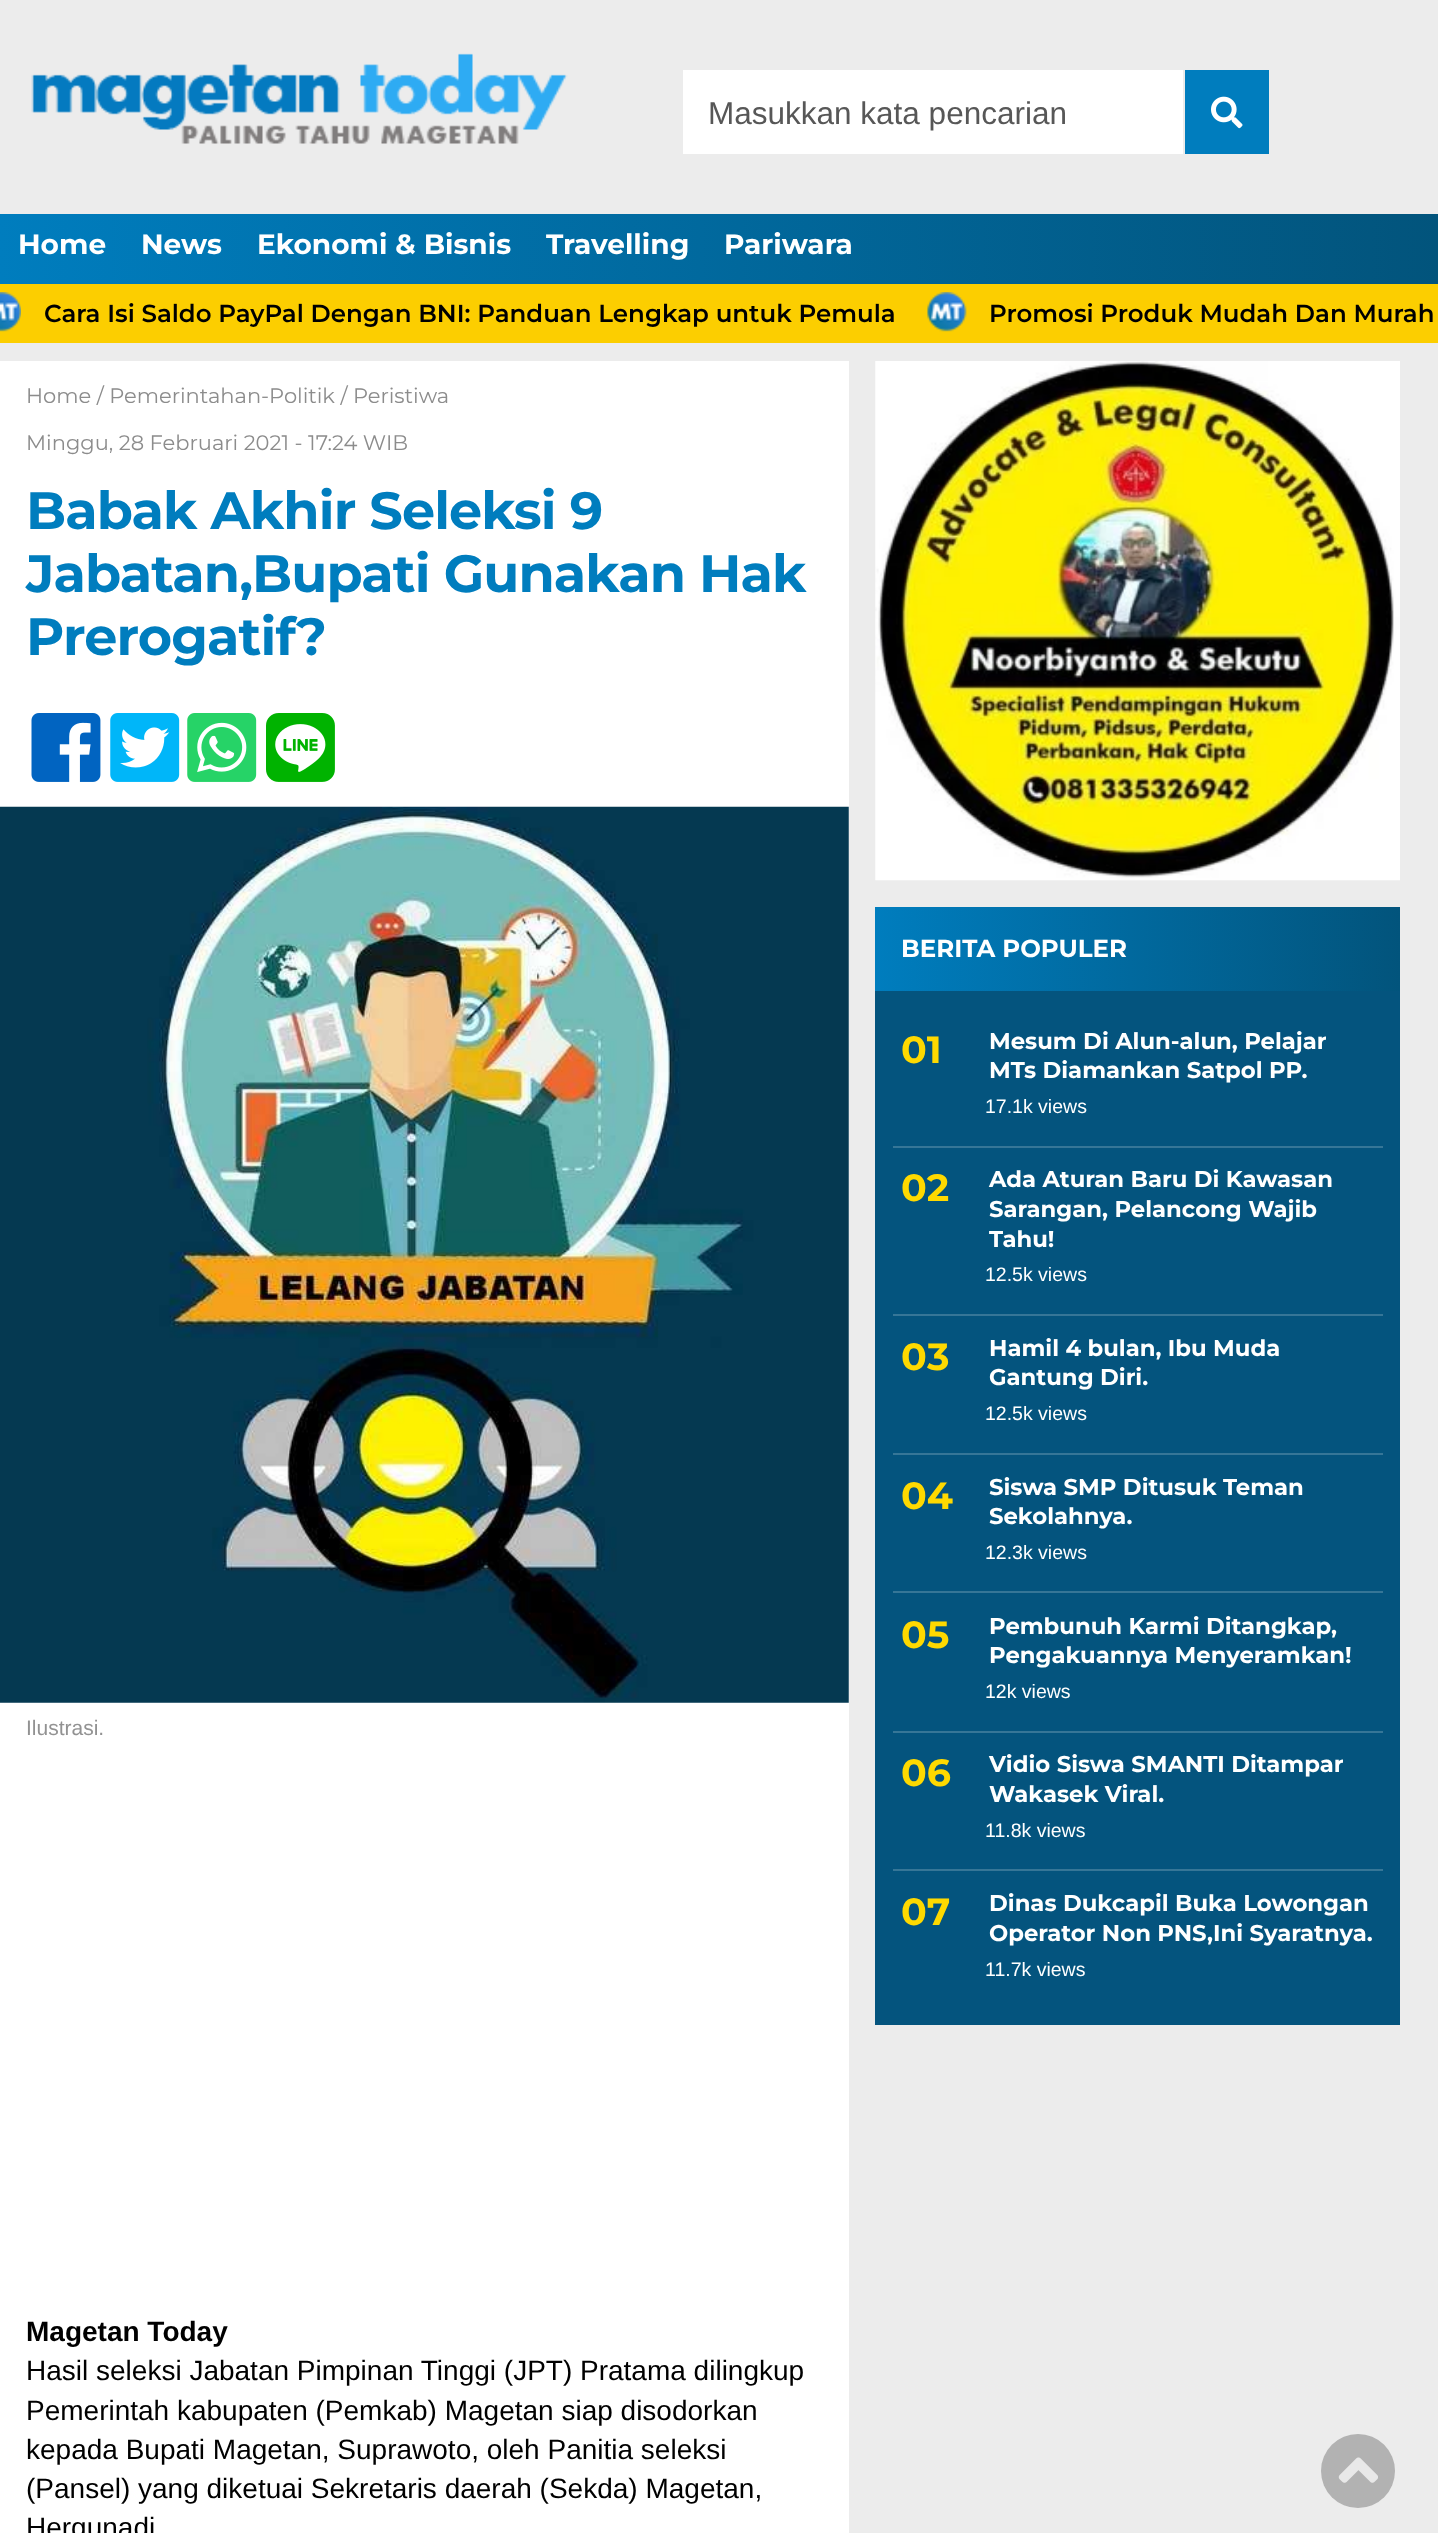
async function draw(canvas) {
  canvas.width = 1438;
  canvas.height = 2533;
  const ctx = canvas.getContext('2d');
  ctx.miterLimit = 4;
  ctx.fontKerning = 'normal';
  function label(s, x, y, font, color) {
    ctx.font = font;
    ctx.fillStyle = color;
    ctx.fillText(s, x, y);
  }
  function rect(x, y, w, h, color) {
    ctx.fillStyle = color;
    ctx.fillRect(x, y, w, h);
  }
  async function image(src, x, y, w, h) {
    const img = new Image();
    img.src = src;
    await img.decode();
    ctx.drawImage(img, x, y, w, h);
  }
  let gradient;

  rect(0, 0, 1438, 2533, '#ececec');
  await image('assets/img1.png', 31, 53, 537, 91);
  rect(683, 70, 500, 84, '#fff');
  label('Masukkan kata pencarian', 708, 124, '31.5px Liberation Sans', '#575757');
  rect(1185, 70, 84, 84, '#007dbe');
  await image('assets/img2.png', 1211, 96, 32, 33);
  gradient = ctx.createLinearGradient(0, 249, 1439, 248);
  gradient.addColorStop(0, '#007dbe');
  gradient.addColorStop(1, '#02547c');
  ctx.fillStyle = gradient;
  ctx.fillRect(0, 214, 1438, 70);
  label('Home', 18, 254, 'bold 28px Montserrat', '#fff');
  label('News', 141, 254, 'bold 28px Montserrat', '#fff');
  label('Ekonomi & Bisnis', 257, 254, 'bold 28px Montserrat', '#fff');
  label('Travelling', 546, 254, 'bold 28px Montserrat', '#fff');
  label('Pariwara', 724, 254, 'bold 28px Montserrat', '#fff');
  rect(0, 284, 1438, 59, '#fcce00');
  await image('assets/img3.png', 0, 292, 21, 40);
  label('Cara Isi Saldo PayPal Dengan BNI: Panduan Lengkap untuk Pemula', 44, 322, '600 24.5px Montserrat', '#000');
  await image('assets/img4.png', 927, 292, 40, 40);
  label('Promosi Produk Mudah Dan Murah', 989, 322, '600 24.5px Montserrat', '#000');
  rect(0, 361, 849, 2172, '#fff');
  label('Home / Pemerintahan-Politik / Peristiwa', 26, 403, '21px Montserrat', '#8c8c8c');
  label('Minggu, 28 Februari 2021 - 17:24 WIB', 26, 450, '21px Montserrat', '#8c8c8c');
  ctx.letterSpacing = '-0.9px';
  label('Babak Akhir Seleksi 9', 26, 529, 'bold 52.5px Montserrat', '#007dbe');
  label('Jabatan,Bupati Gunakan Hak', 26, 592, 'bold 52.5px Montserrat', '#007dbe');
  label('Prerogatif?', 26, 655, 'bold 52.5px Montserrat', '#007dbe');
  await image('assets/img5.png', 31, 713, 70, 69);
  await image('assets/img6.png', 110, 713, 70, 69);
  await image('assets/img7.png', 187, 713, 70, 69);
  await image('assets/img8.png', 266, 713, 69, 69);
  await image('assets/img9.png', 0, 806, 849, 897);
  ctx.letterSpacing = '0px';
  label('Ilustrasi.', 26, 1735, '21px Liberation Sans', '#929292');
  label('Magetan Today', 26, 2341, 'bold 28px Liberation Sans', '#000');
  label('Hasil seleksi Jabatan Pimpinan Tinggi (JPT) Pratama dilingkup', 26, 2380, '28px Liberation Sans', '#000');
  label('Pemerintah kabupaten (Pemkab) Magetan siap disodorkan', 26, 2420, '28px Liberation Sans', '#000');
  label('kepada Bupati Magetan, Suprawoto, oleh Panitia seleksi', 26, 2459, '28px Liberation Sans', '#000');
  label('(Pansel) yang diketuai Sekretaris daerah (Sekda) Magetan,', 26, 2498, '28px Liberation Sans', '#000');
  label('Hergunadi', 26, 2537, '28px Liberation Sans', '#000');
  await image('assets/img10.png', 875, 361, 525, 520);
  gradient = ctx.createLinearGradient(875, 949, 1400, 949);
  gradient.addColorStop(0, '#007dbe');
  gradient.addColorStop(1, '#02547c');
  ctx.fillStyle = gradient;
  ctx.fillRect(875, 907, 525, 84);
  label('BERITA POPULER', 901, 957, 'bold 24.5px Montserrat', '#fff');
  rect(875, 991, 525, 1034, '#04547e');
  rect(893, 1146, 490, 2, '#367697');
  label('01', 901, 1063, 'bold 38px Montserrat', '#ffd900');
  label('Mesum Di Alun-alun, Pelajar', 989, 1049, 'bold 22.75px Montserrat', '#fff');
  label('MTs Diamankan Satpol PP.', 989, 1078, 'bold 22.75px Montserrat', '#fff');
  label('17.1k views', 985, 1113, '19.5px Liberation Sans', '#fff');
  rect(893, 1314, 490, 2, '#367697');
  label('02', 901, 1201, 'bold 38px Montserrat', '#ffd900');
  label('Ada Aturan Baru Di Kawasan', 989, 1187, 'bold 22.75px Montserrat', '#fff');
  label('Sarangan, Pelancong Wajib', 989, 1217, 'bold 22.75px Montserrat', '#fff');
  label('Tahu!', 989, 1247, 'bold 22.75px Montserrat', '#fff');
  label('12.5k views', 985, 1281, '19.5px Liberation Sans', '#fff');
  rect(893, 1453, 490, 2, '#367697');
  label('0', 901, 1370, 'bold 38px Montserrat', '#ffd900');
  label('3', 927, 1370, 'bold 38px Montserrat', '#ffd900');
  label('Hamil 4 bulan, Ibu Muda', 989, 1356, 'bold 22.75px Montserrat', '#fff');
  label('Gantung Diri.', 989, 1385, 'bold 22.75px Montserrat', '#fff');
  label('12.5k views', 985, 1420, '19.5px Liberation Sans', '#fff');
  rect(893, 1591, 490, 2, '#367697');
  label('04', 901, 1509, 'bold 38px Montserrat', '#ffd900');
  label('Siswa SMP Ditusuk Teman', 989, 1495, 'bold 22.75px Montserrat', '#fff');
  label('Sekolahnya.', 989, 1524, 'bold 22.75px Montserrat', '#fff');
  label('12.3k views', 985, 1559, '19.5px Liberation Sans', '#fff');
  rect(893, 1731, 490, 2, '#367697');
  label('05', 901, 1648, 'bold 38px Montserrat', '#ffd900');
  label('Pembunuh Karmi Ditangkap,', 989, 1634, 'bold 22.75px Montserrat', '#fff');
  label('Pengakuannya Menyeramkan!', 989, 1663, 'bold 22.75px Montserrat', '#fff');
  label('12k views', 985, 1698, '19.5px Liberation Sans', '#fff');
  rect(893, 1869, 490, 2, '#367697');
  label('06', 901, 1786, 'bold 38px Montserrat', '#ffd900');
  label('Vidio Siswa SMANTI Ditampar', 989, 1772, 'bold 22.75px Montserrat', '#fff');
  label('Wakasek Viral.', 989, 1802, 'bold 22.75px Montserrat', '#fff');
  label('11.8k views', 985, 1837, '19.5px Liberation Sans', '#fff');
  label('07', 901, 1925, 'bold 38px Montserrat', '#ffd900');
  label('Dinas Dukcapil Buka Lowongan', 989, 1911, 'bold 22.75px Montserrat', '#fff');
  label('Operator Non PNS,Ini Syaratnya.', 989, 1941, 'bold 22.75px Montserrat', '#fff');
  label('11.7k views', 985, 1976, '19.5px Liberation Sans', '#fff');
  ctx.fillStyle = '#b2b2b2';
  ctx.beginPath();
  ctx.arc(1358, 2471, 37, 0, 2 * Math.PI);
  ctx.fill();
  await image('assets/img11.png', 1338, 2457, 40, 26);
}

draw(document.querySelector('canvas'));
